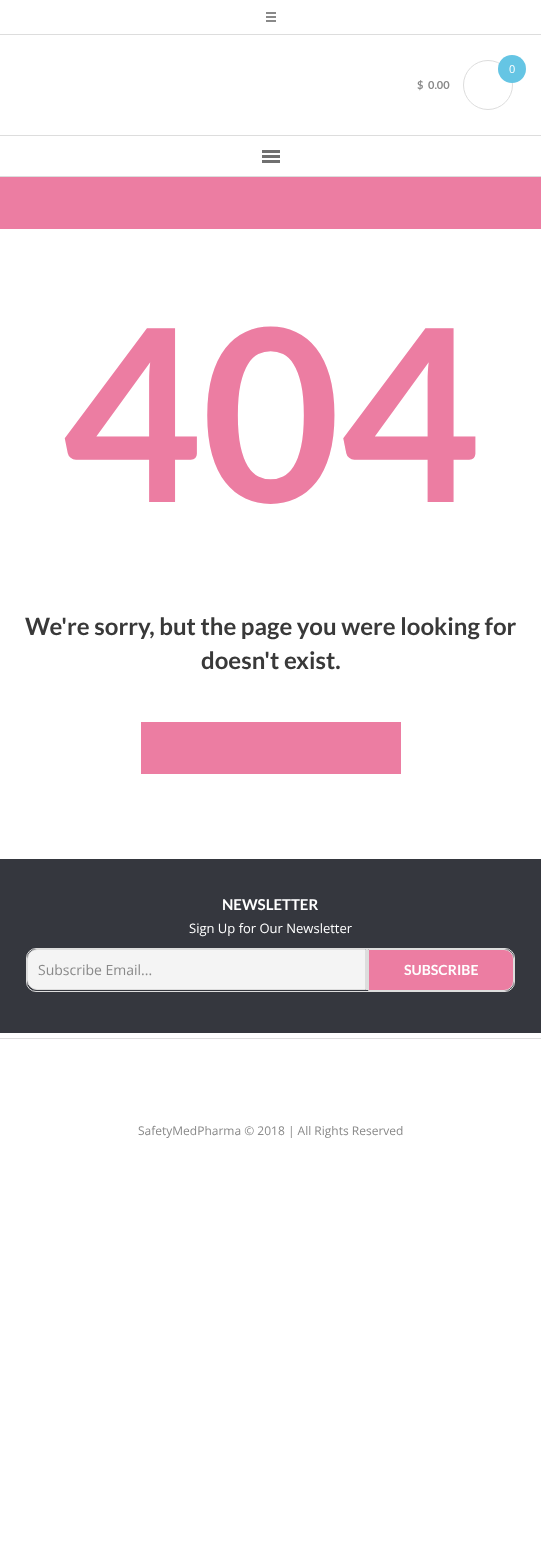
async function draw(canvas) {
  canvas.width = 541;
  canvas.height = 1547;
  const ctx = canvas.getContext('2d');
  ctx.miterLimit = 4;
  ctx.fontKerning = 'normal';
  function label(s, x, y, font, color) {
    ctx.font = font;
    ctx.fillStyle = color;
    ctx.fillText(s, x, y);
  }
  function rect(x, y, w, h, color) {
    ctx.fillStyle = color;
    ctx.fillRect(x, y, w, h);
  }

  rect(0, 0, 541, 1547, '#fff');
  rect(0, 34, 541, 1, '#ddd');
  rect(266, 16, 10, 2, '#898989');
  rect(266, 12, 10, 2, '#898989');
  rect(266, 20, 10, 2, '#898989');
  ctx.beginPath();
  ctx.arc(488, 85, 24.5, 0, 2 * Math.PI);
  ctx.strokeStyle = '#ddd';
  ctx.stroke();
  ctx.fillStyle = '#65c5e4';
  ctx.beginPath();
  ctx.arc(512, 69, 14, 0, 2 * Math.PI);
  ctx.fill();
  label('0', 509, 73, '11px Open Sans', '#fff');
  label('$', 417, 89, 'bold 11px Lato', '#898989');
  label('0.00', 428, 89, 'bold 11px Lato', '#898989');
  rect(0, 135, 541, 1, '#ddd');
  rect(0, 176, 541, 1, '#ddd');
  rect(262, 155, 18, 3, '#707070');
  rect(262, 150, 18, 3, '#707070');
  rect(262, 160, 18, 3, '#707070');
  rect(0, 177, 541, 52, '#ec7da2');
  label('404', 62, 502, 'bold 240px Lato', '#ec7da2');
  label('We\'re sorry, but the page you were looking for', 25, 635, 'bold 24px Lato', '#393939');
  label('doesn\'t exist.', 201, 669, 'bold 24px Lato', '#393939');
  rect(141, 722, 260, 52, '#ec7da2');
  rect(0, 859, 541, 174, '#35373e');
  label('NEWSLETTER', 222, 910, 'bold 15px Lato', '#fff');
  label('Sign Up for Our Newsletter', 189, 933, '13px Open Sans', '#fff');
  ctx.beginPath();
  ctx.roundRect(26.5, 948.5, 488, 43, 9.5);
  ctx.stroke();
  rect(366, 949, 2, 41, '#ddd');
  ctx.fillStyle = '#f4f4f4';
  ctx.beginPath();
  ctx.roundRect(27.5, 949.5, 338, 40, [9.5, 0, 0, 9.5]);
  ctx.fill();
  ctx.stroke();
  label('Subscribe Email...', 38, 975, '14px Open Sans', '#898989');
  ctx.fillStyle = '#ec7da2';
  ctx.beginPath();
  ctx.roundRect(368.5, 949.5, 145, 41, [0, 9.5, 9.5, 0]);
  ctx.fill();
  ctx.stroke();
  label('SUBSCRIBE', 404, 975, 'bold 14px Lato', '#fff');
  rect(0, 1038, 541, 1, '#ddd');
  label('SafetyMedPharma © 2018 | All Rights Reserved', 138, 1135, '12px Open Sans', '#898989');
}

draw(document.querySelector('canvas'));
